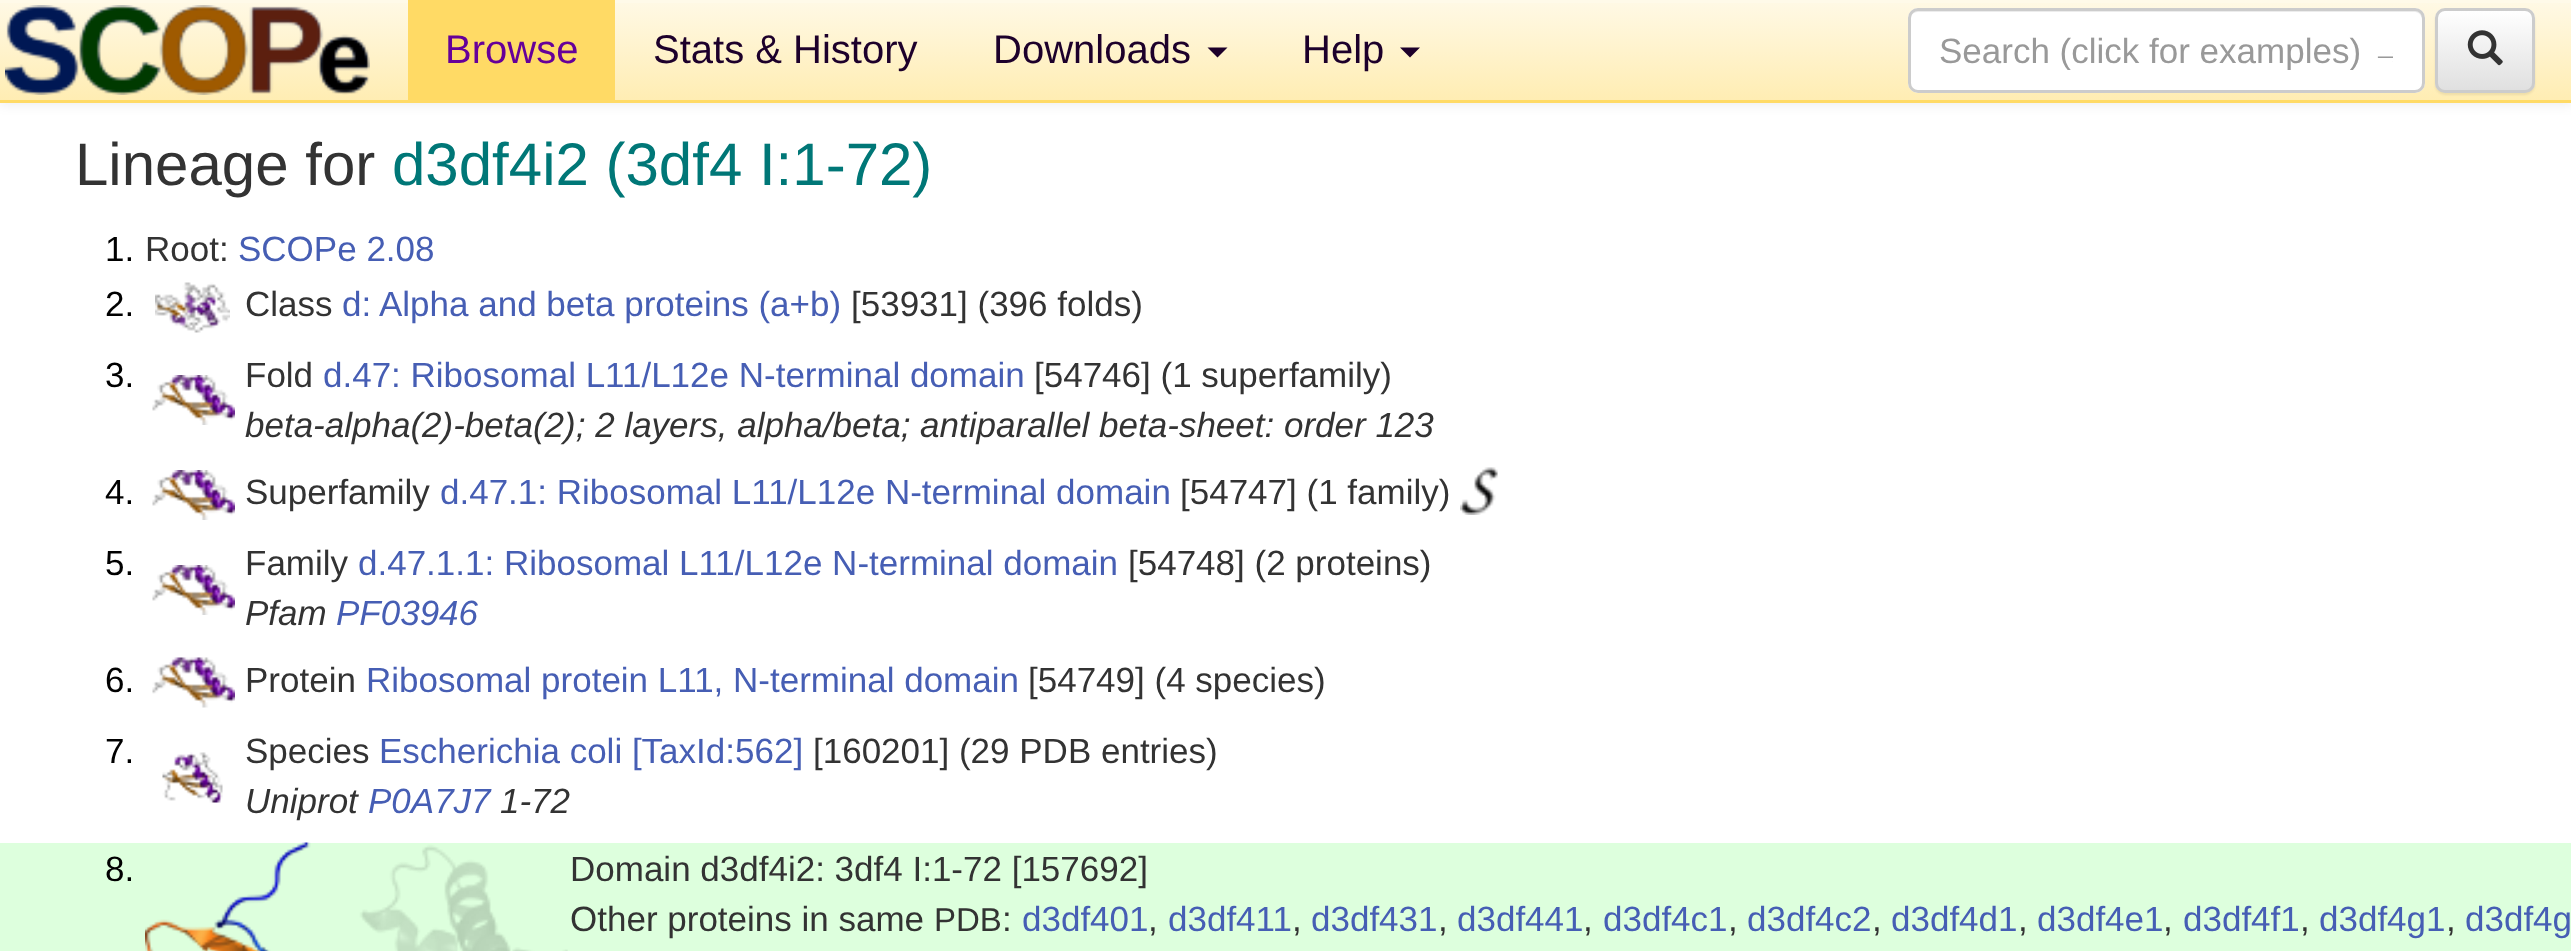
async function draw(canvas) {
  canvas.width = 2571;
  canvas.height = 951;
  const ctx = canvas.getContext('2d');
  ctx.miterLimit = 4;
  ctx.fontKerning = 'normal';
  function label(s, x, y, font, color) {
    ctx.font = font;
    ctx.fillStyle = color;
    ctx.fillText(s, x, y);
  }
  function rect(x, y, w, h, color) {
    ctx.fillStyle = color;
    ctx.fillRect(x, y, w, h);
  }
  function roundedRect(x, y, w, h, r, color) {
    ctx.fillStyle = color;
    ctx.beginPath();
    ctx.roundRect(x, y, w, h, r);
    ctx.fill();
  }
  async function image(src, x, y, w, h) {
    const img = new Image();
    img.src = src;
    await img.decode();
    ctx.drawImage(img, x, y, w, h);
  }
  let gradient, path;

  rect(0, 0, 2571, 951, '#fff');
  ctx.fillStyle = '#00000012';
  ctx.filter = 'blur(6px)';
  ctx.beginPath();
  ctx.rect(0, 3, 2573, 102);
  ctx.fill();
  ctx.filter = 'none';
  gradient = ctx.createLinearGradient(1286, 0, 1286, 100);
  gradient.addColorStop(0, '#fff9e6');
  gradient.addColorStop(1, '#ffedb3');
  ctx.fillStyle = gradient;
  ctx.fillRect(0, 3, 2571, 97);
  rect(0, 0, 2571, 3, '#fffae9');
  rect(0, 100, 2571, 3, '#ffda65');
  await image('assets/img1.png', 5, 5, 365, 90);
  rect(408, 0, 207, 100, '#ffda65');
  label('Browse', 445, 63, '40px Liberation Sans', '#609');
  label('Stats & History', 653, 63, '40px Liberation Sans', '#1d002b');
  label('Downloads', 993, 63, '40px Liberation Sans', '#1d002b');
  path = new Path2D('M1207.5 47.5H1227.5L1217.5 57.5Z');
  ctx.fill(path);
  label('Help', 1302, 63, '40px Liberation Sans', '#1d002b');
  path = new Path2D('M1400 47.5H1420L1410 57.5Z');
  ctx.fill(path);
  roundedRect(1908, 8, 517, 85, 10, '#fff');
  ctx.fillStyle = '#ececec';
  path = new Path2D('M1918 12H2415C2419 12 2422 16 2422 20V86C2423 85 2423 83 2423 82V18C2423 14 2419 10 2415 10H1918C1914 10 1910 14 1910 18V20C1910 16 1913 12 1918 12Z');
  ctx.fill(path);
  ctx.beginPath();
  ctx.roundRect(1909.5, 9.5, 514, 82, 8.5);
  ctx.strokeStyle = '#ccc';
  ctx.lineWidth = 3;
  ctx.stroke();
  ctx.save();
  ctx.beginPath();
  ctx.rect(1940, 30, 453, 40);
  ctx.clip();
  label('Search (click for examples) →', 1939, 63, '35px Liberation Sans', '#999');
  ctx.restore();
  ctx.fillStyle = '#00000012';
  ctx.filter = 'blur(1px)';
  ctx.beginPath();
  ctx.roundRect(2435, 10, 100, 85, 10);
  ctx.fill();
  ctx.filter = 'none';
  ctx.save();
  ctx.beginPath();
  ctx.roundRect(2435, 8, 100, 85, 10);
  ctx.clip();
  gradient = ctx.createLinearGradient(2485, 10, 2485, 90);
  gradient.addColorStop(0, '#fff');
  gradient.addColorStop(1, '#e0e0e0');
  ctx.fillStyle = gradient;
  ctx.fillRect(2435, 10, 100, 80);
  ctx.restore();
  ctx.fillStyle = '#ffffff26';
  path = new Path2D('M2445 12H2526C2534 14 2532 26 2532 31V86C2533 85 2533 83 2533 82V18C2533 14 2529 10 2525 10H2446C2442 10 2438 14 2438 18V20C2438 16 2441 12 2445 12Z');
  ctx.fill(path);
  ctx.beginPath();
  ctx.roundRect(2436.5, 9.5, 97, 82, 8.5);
  ctx.stroke();
  await image('assets/img2.png', 2467, 30, 36, 36);
  label('Lineage for', 75, 185, '60px Liberation Sans', '#333');
  label('d3df4i2 (3df4 I:1-72)', 392, 185, '60px Liberation Sans', '#077');
  label('1.', 105, 261, '35px Liberation Sans', '#000');
  label('Root:', 145, 261, '35px Liberation Sans', '#333');
  label('SCOPe 2.08', 238, 261, '35px Liberation Sans', '#465eb4');
  label('2.', 105, 316, '35px Liberation Sans', '#000');
  await image('assets/img3.png', 155, 282, 75, 51);
  label('Class', 245, 316, '35px Liberation Sans', '#333');
  label('d: Alpha and beta proteins (a+b)', 342, 316, '35px Liberation Sans', '#465eb4');
  label('[53931] (396 folds)', 851, 316, '35px Liberation Sans', '#333');
  label('3.', 105, 387, '35px Liberation Sans', '#000');
  await image('assets/img4.png', 152, 375, 83, 50);
  label('Fold', 245, 387, '35px Liberation Sans', '#333');
  label('d.47: Ribosomal L11/L12e N-terminal domain', 323, 387, '35px Liberation Sans', '#465eb4');
  label('[54746] (1 superfamily)', 1034, 387, '35px Liberation Sans', '#333');
  label('beta-alpha(2)-beta(2); 2 layers, alpha/beta; antiparallel beta-sheet: order 123', 245, 437, 'italic 35px Liberation Sans', '#333');
  label('4.', 105, 504, '35px Liberation Sans', '#000');
  await image('assets/img4.png', 152, 470, 83, 50);
  label('Superfamily', 245, 504, '35px Liberation Sans', '#333');
  label('d.47.1: Ribosomal L11/L12e N-terminal domain', 440, 504, '35px Liberation Sans', '#465eb4');
  label('[54747] (1 family)', 1180, 504, '35px Liberation Sans', '#333');
  await image('assets/img5.png', 1460, 467, 38, 48);
  label('5.', 105, 575, '35px Liberation Sans', '#000');
  await image('assets/img6.png', 152, 565, 83, 50);
  label('Family', 245, 575, '35px Liberation Sans', '#333');
  label('d.47.1.1: Ribosomal L11/L12e N-terminal domain', 358, 575, '35px Liberation Sans', '#465eb4');
  label('[54748] (2 proteins)', 1128, 575, '35px Liberation Sans', '#333');
  label('Pfam', 245, 625, 'italic 35px Liberation Sans', '#333');
  label('PF03946', 336, 625, 'italic 35px Liberation Sans', '#465eb4');
  label('6.', 105, 692, '35px Liberation Sans', '#000');
  await image('assets/img7.png', 152, 657, 83, 51);
  label('Protein', 245, 692, '35px Liberation Sans', '#333');
  label('Ribosomal protein L11, N-terminal domain', 366, 692, '35px Liberation Sans', '#465eb4');
  label('[54749] (4 species)', 1028, 692, '35px Liberation Sans', '#333');
  label('7.', 105, 763, '35px Liberation Sans', '#000');
  await image('assets/img8.png', 162, 752, 61, 51);
  label('Species', 245, 763, '35px Liberation Sans', '#333');
  label('Escherichia coli [TaxId:562]', 379, 763, '35px Liberation Sans', '#465eb4');
  label('[160201] (29 PDB entries)', 813, 763, '35px Liberation Sans', '#333');
  label('Uniprot', 245, 813, 'italic 35px Liberation Sans', '#333');
  label('P0A7J7', 368, 813, 'italic 35px Liberation Sans', '#465eb4');
  label('1-72', 500, 813, 'italic 35px Liberation Sans', '#333');
  rect(0, 843, 2571, 108, '#dfd');
  label('8.', 105, 881, '35px Liberation Sans', '#000');
  await image('assets/img9.png', 145, 842, 423, 109);
  label('Domain d3df4i2: 3df4 I:1-72 [157692]', 570, 881, '35px Liberation Sans', '#333');
  label('Other proteins in same', 570, 931, '35px Liberation Sans', '#333');
  label('PDB', 934, 931, '33px Liberation Sans', '#333');
  label(':', 1002, 931, '35px Liberation Sans', '#333');
  label('d3df401', 1022, 931, '35px Liberation Sans', '#465eb4');
  label(',', 1148, 931, '35px Liberation Sans', '#333');
  label('d3df411', 1168, 931, '35px Liberation Sans', '#465eb4');
  label(',', 1292, 931, '35px Liberation Sans', '#333');
  label('d3df431', 1311, 931, '35px Liberation Sans', '#465eb4');
  label(',', 1438, 931, '35px Liberation Sans', '#333');
  label('d3df441', 1457, 931, '35px Liberation Sans', '#465eb4');
  label(',', 1583, 931, '35px Liberation Sans', '#333');
  label('d3df4c1', 1603, 931, '35px Liberation Sans', '#465eb4');
  label(',', 1728, 931, '35px Liberation Sans', '#333');
  label('d3df4c2', 1747, 931, '35px Liberation Sans', '#465eb4');
  label(',', 1872, 931, '35px Liberation Sans', '#333');
  label('d3df4d1', 1891, 931, '35px Liberation Sans', '#465eb4');
  label(',', 2018, 931, '35px Liberation Sans', '#333');
  label('d3df4e1', 2037, 931, '35px Liberation Sans', '#465eb4');
  label(',', 2163, 931, '35px Liberation Sans', '#333');
  label('d3df4f1', 2183, 931, '35px Liberation Sans', '#465eb4');
  label(',', 2300, 931, '35px Liberation Sans', '#333');
  label('d3df4g1', 2319, 931, '35px Liberation Sans', '#465eb4');
  label(',', 2446, 931, '35px Liberation Sans', '#333');
  label('d3df4g', 2465, 931, '35px Liberation Sans', '#465eb4');
}

draw(document.querySelector('canvas'));
